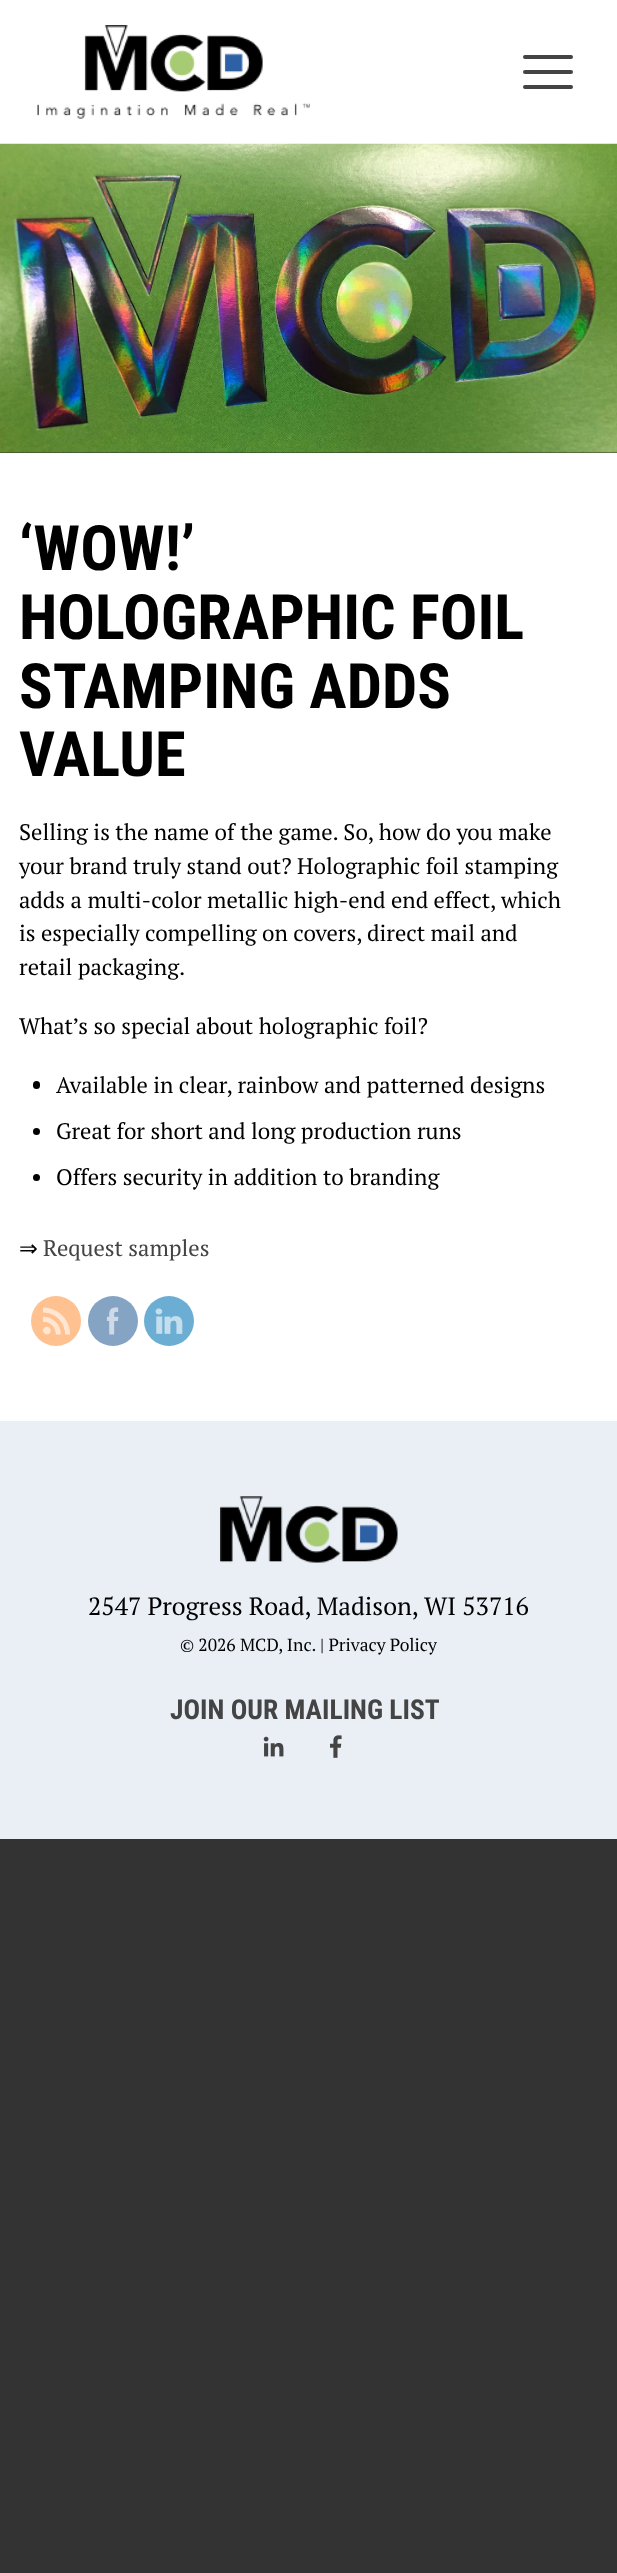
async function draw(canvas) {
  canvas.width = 617;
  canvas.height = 2573;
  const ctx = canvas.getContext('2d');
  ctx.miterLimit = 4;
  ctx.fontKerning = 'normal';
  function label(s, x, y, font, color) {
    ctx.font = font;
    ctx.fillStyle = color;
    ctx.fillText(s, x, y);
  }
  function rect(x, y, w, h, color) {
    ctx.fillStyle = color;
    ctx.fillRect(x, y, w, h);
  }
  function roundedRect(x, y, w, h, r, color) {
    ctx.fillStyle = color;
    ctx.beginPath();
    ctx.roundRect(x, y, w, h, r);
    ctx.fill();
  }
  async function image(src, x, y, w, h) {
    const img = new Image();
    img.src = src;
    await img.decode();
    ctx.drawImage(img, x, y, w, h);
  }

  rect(0, 0, 617, 2573, '#333');
  rect(0, 0, 617, 144, '#fff');
  await image('assets/img1.png', 37, 25, 273, 94);
  roundedRect(523, 55, 50, 4, 2, '#444');
  roundedRect(523, 70, 50, 4, 2, '#444');
  roundedRect(523, 85, 50, 4, 2, '#444');
  await image('assets/img2.png', 0, 143, 617, 310);
  rect(0, 453, 617, 968, '#fff');
  label('‘WOW!’', 19, 570, 'bold 62.5px Roboto Condensed', '#000');
  label('HOLOGRAPHIC FOIL', 19, 639, 'bold 62.5px Roboto Condensed', '#000');
  label('STAMPING ADDS', 19, 708, 'bold 62.5px Roboto Condensed', '#000');
  label('VALUE', 19, 776, 'bold 62.5px Roboto Condensed', '#000');
  label('Selling is the name of the game. So, how do you make', 19, 840, '22.5px PT Serif', '#000');
  label('your brand truly stand out? Holographic foil stamping', 19, 874, '22.5px PT Serif', '#000');
  label('adds a multi-color metallic high-end end effect, which', 19, 908, '22.5px PT Serif', '#000');
  label('is especially compelling on covers, direct mail and', 19, 941, '22.5px PT Serif', '#000');
  label('retail packaging.', 19, 975, '22.5px PT Serif', '#000');
  label('What’s so special about holographic foil?', 19, 1034, '22.5px PT Serif', '#000');
  roundedRect(33, 1081, 7, 8, 3.5, '#000');
  label('Available in clear, rainbow and patterned designs', 56, 1093, '22.5px PT Serif', '#000');
  ctx.beginPath();
  ctx.arc(36.5, 1131.5, 3.5, 0, 2 * Math.PI);
  ctx.fill();
  label('Great for short and long production runs', 56, 1139, '22.5px PT Serif', '#000');
  ctx.beginPath();
  ctx.arc(36.5, 1177.5, 3.5, 0, 2 * Math.PI);
  ctx.fill();
  label('Offers security in addition to branding', 56, 1185, '22.5px PT Serif', '#000');
  label('⇒', 19, 1256, '22.5px DejaVu Sans', '#000');
  label('Request samples', 43, 1256, '22.5px PT Serif', '#444');
  ctx.fillStyle = '#ffc18f';
  ctx.beginPath();
  ctx.arc(56, 1321, 25, 0, 2 * Math.PI);
  ctx.fill();
  await image('assets/img3.png', 43, 1307, 27, 28);
  ctx.fillStyle = '#85a3c2';
  ctx.beginPath();
  ctx.arc(113, 1321, 25, 0, 2 * Math.PI);
  ctx.fill();
  await image('assets/img4.png', 106, 1307, 13, 28);
  ctx.fillStyle = '#6badd3';
  ctx.beginPath();
  ctx.arc(169, 1321, 25, 0, 2 * Math.PI);
  ctx.fill();
  await image('assets/img5.png', 155, 1308, 28, 26);
  rect(0, 1421, 617, 418, '#eaeff6');
  await image('assets/img6.png', 220, 1496, 178, 67);
  label('2547 Progress Road, Madison, WI 53716', 88, 1615, '25px PT Serif', '#000');
  label('© 2026 MCD, Inc. | Privacy Policy', 180, 1651, '17.5px PT Serif', '#000');
  label('JOIN OUR MAILING LIST', 170, 1719, 'bold 27.5px Roboto Condensed', '#444');
  await image('assets/img7.png', 263, 1736, 21, 21);
  await image('assets/img8.png', 330, 1735, 12, 23);
}

draw(document.querySelector('canvas'));
